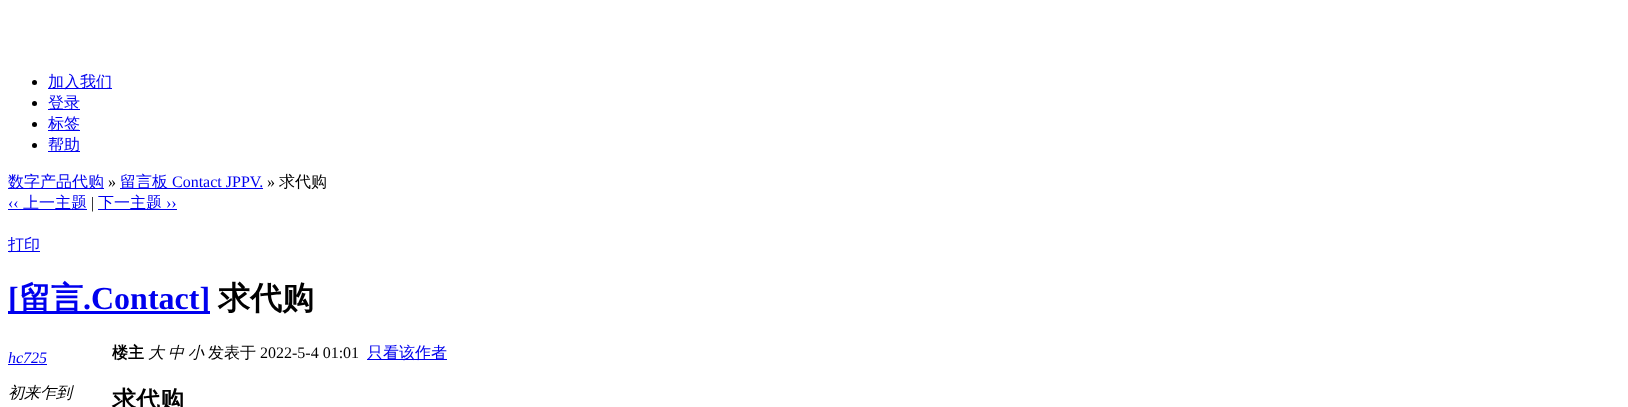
async function draw(canvas) {
  canvas.width = 1628;
  canvas.height = 407;
  const ctx = canvas.getContext('2d');
  ctx.miterLimit = 4;
  ctx.fontKerning = 'normal';
  function label(s, x, y, font, color) {
    ctx.font = font;
    ctx.fillStyle = color;
    ctx.fillText(s, x, y);
  }
  function rect(x, y, w, h, color) {
    ctx.fillStyle = color;
    ctx.fillRect(x, y, w, h);
  }

  rect(0, 0, 1628, 407, '#fff');
  ctx.fillStyle = '#000';
  ctx.beginPath();
  ctx.arc(34.5, 82.5, 2.5, 0, 2 * Math.PI);
  ctx.fill();
  rect(48, 88, 64, 1, '#00e');
  label('加入我们', 48, 87, '500 16px WenQuanYi Zen Hei', '#00e');
  ctx.fillStyle = '#000';
  ctx.beginPath();
  ctx.arc(34.5, 103.5, 2.5, 0, 2 * Math.PI);
  ctx.fill();
  rect(48, 109, 32, 1, '#00e');
  label('登录', 48, 108, '500 16px WenQuanYi Zen Hei', '#00e');
  ctx.fillStyle = '#000';
  ctx.beginPath();
  ctx.arc(34.5, 124.5, 2.5, 0, 2 * Math.PI);
  ctx.fill();
  rect(48, 130, 32, 1, '#00e');
  label('标签', 48, 129, '500 16px WenQuanYi Zen Hei', '#00e');
  ctx.fillStyle = '#000';
  ctx.beginPath();
  ctx.arc(34.5, 145.5, 2.5, 0, 2 * Math.PI);
  ctx.fill();
  rect(48, 151, 32, 1, '#00e');
  label('帮助', 48, 150, '500 16px WenQuanYi Zen Hei', '#00e');
  rect(8, 188, 96, 1, '#00e');
  label('数字产品代购', 8, 187, '500 16px WenQuanYi Zen Hei', '#00e');
  label('»', 108, 187, '16px Liberation Serif', '#000');
  rect(120, 188, 143, 1, '#00e');
  label('留言板', 120, 187, '500 16px WenQuanYi Zen Hei', '#00e');
  label('Contact JPPV.', 172, 187, '16px Liberation Serif', '#00e');
  label('»', 267, 187, '16px Liberation Serif', '#000');
  label('求代购', 279, 187, '500 16px WenQuanYi Zen Hei', '#000');
  label('‹‹', 8, 208, '16px Liberation Serif', '#00e');
  rect(8, 209, 79, 1, '#00e');
  label('上一主题', 23, 208, '500 16px WenQuanYi Zen Hei', '#00e');
  label('|', 91, 208, '16px Liberation Serif', '#000');
  rect(98, 209, 79, 1, '#00e');
  label('下一主题', 98, 208, '500 16px WenQuanYi Zen Hei', '#00e');
  label('››', 166, 208, '16px Liberation Serif', '#00e');
  rect(8, 251, 32, 1, '#00e');
  label('打印', 8, 250, '500 16px WenQuanYi Zen Hei', '#00e');
  rect(8, 311, 202, 3, '#00e');
  label('[', 8, 309, 'bold 32px Liberation Serif', '#00e');
  label('留言', 19, 309, 'bold 32px WenQuanYi Zen Hei', '#00e');
  label('.Contact]', 83, 309, 'bold 32px Liberation Serif', '#00e');
  label('求代购', 218, 309, 'bold 32px WenQuanYi Zen Hei', '#000');
  label('hc725', 8, 363, 'italic 16px Liberation Serif', '#00e');
  rect(8, 364, 39, 1, '#00e');
  label('初来乍到', 8, 398, 'italic 500 16px WenQuanYi Zen Hei', '#000');
  label('楼主', 112, 358, 'bold 16px WenQuanYi Zen Hei', '#000');
  label('大', 148, 358, 'italic 500 16px WenQuanYi Zen Hei', '#000');
  label('中', 168, 358, 'italic 500 16px WenQuanYi Zen Hei', '#000');
  label('小', 188, 358, 'italic 500 16px WenQuanYi Zen Hei', '#000');
  label('发表于', 208, 358, '500 16px WenQuanYi Zen Hei', '#000');
  label('2022-5-4 01:01', 260, 358, '16px Liberation Serif', '#000');
  rect(367, 359, 80, 1, '#00e');
  label('只看该作者', 367, 358, '500 16px WenQuanYi Zen Hei', '#00e');
  label('求代购', 112, 408, 'bold 24px WenQuanYi Zen Hei', '#000');
}

draw(document.querySelector('canvas'));
